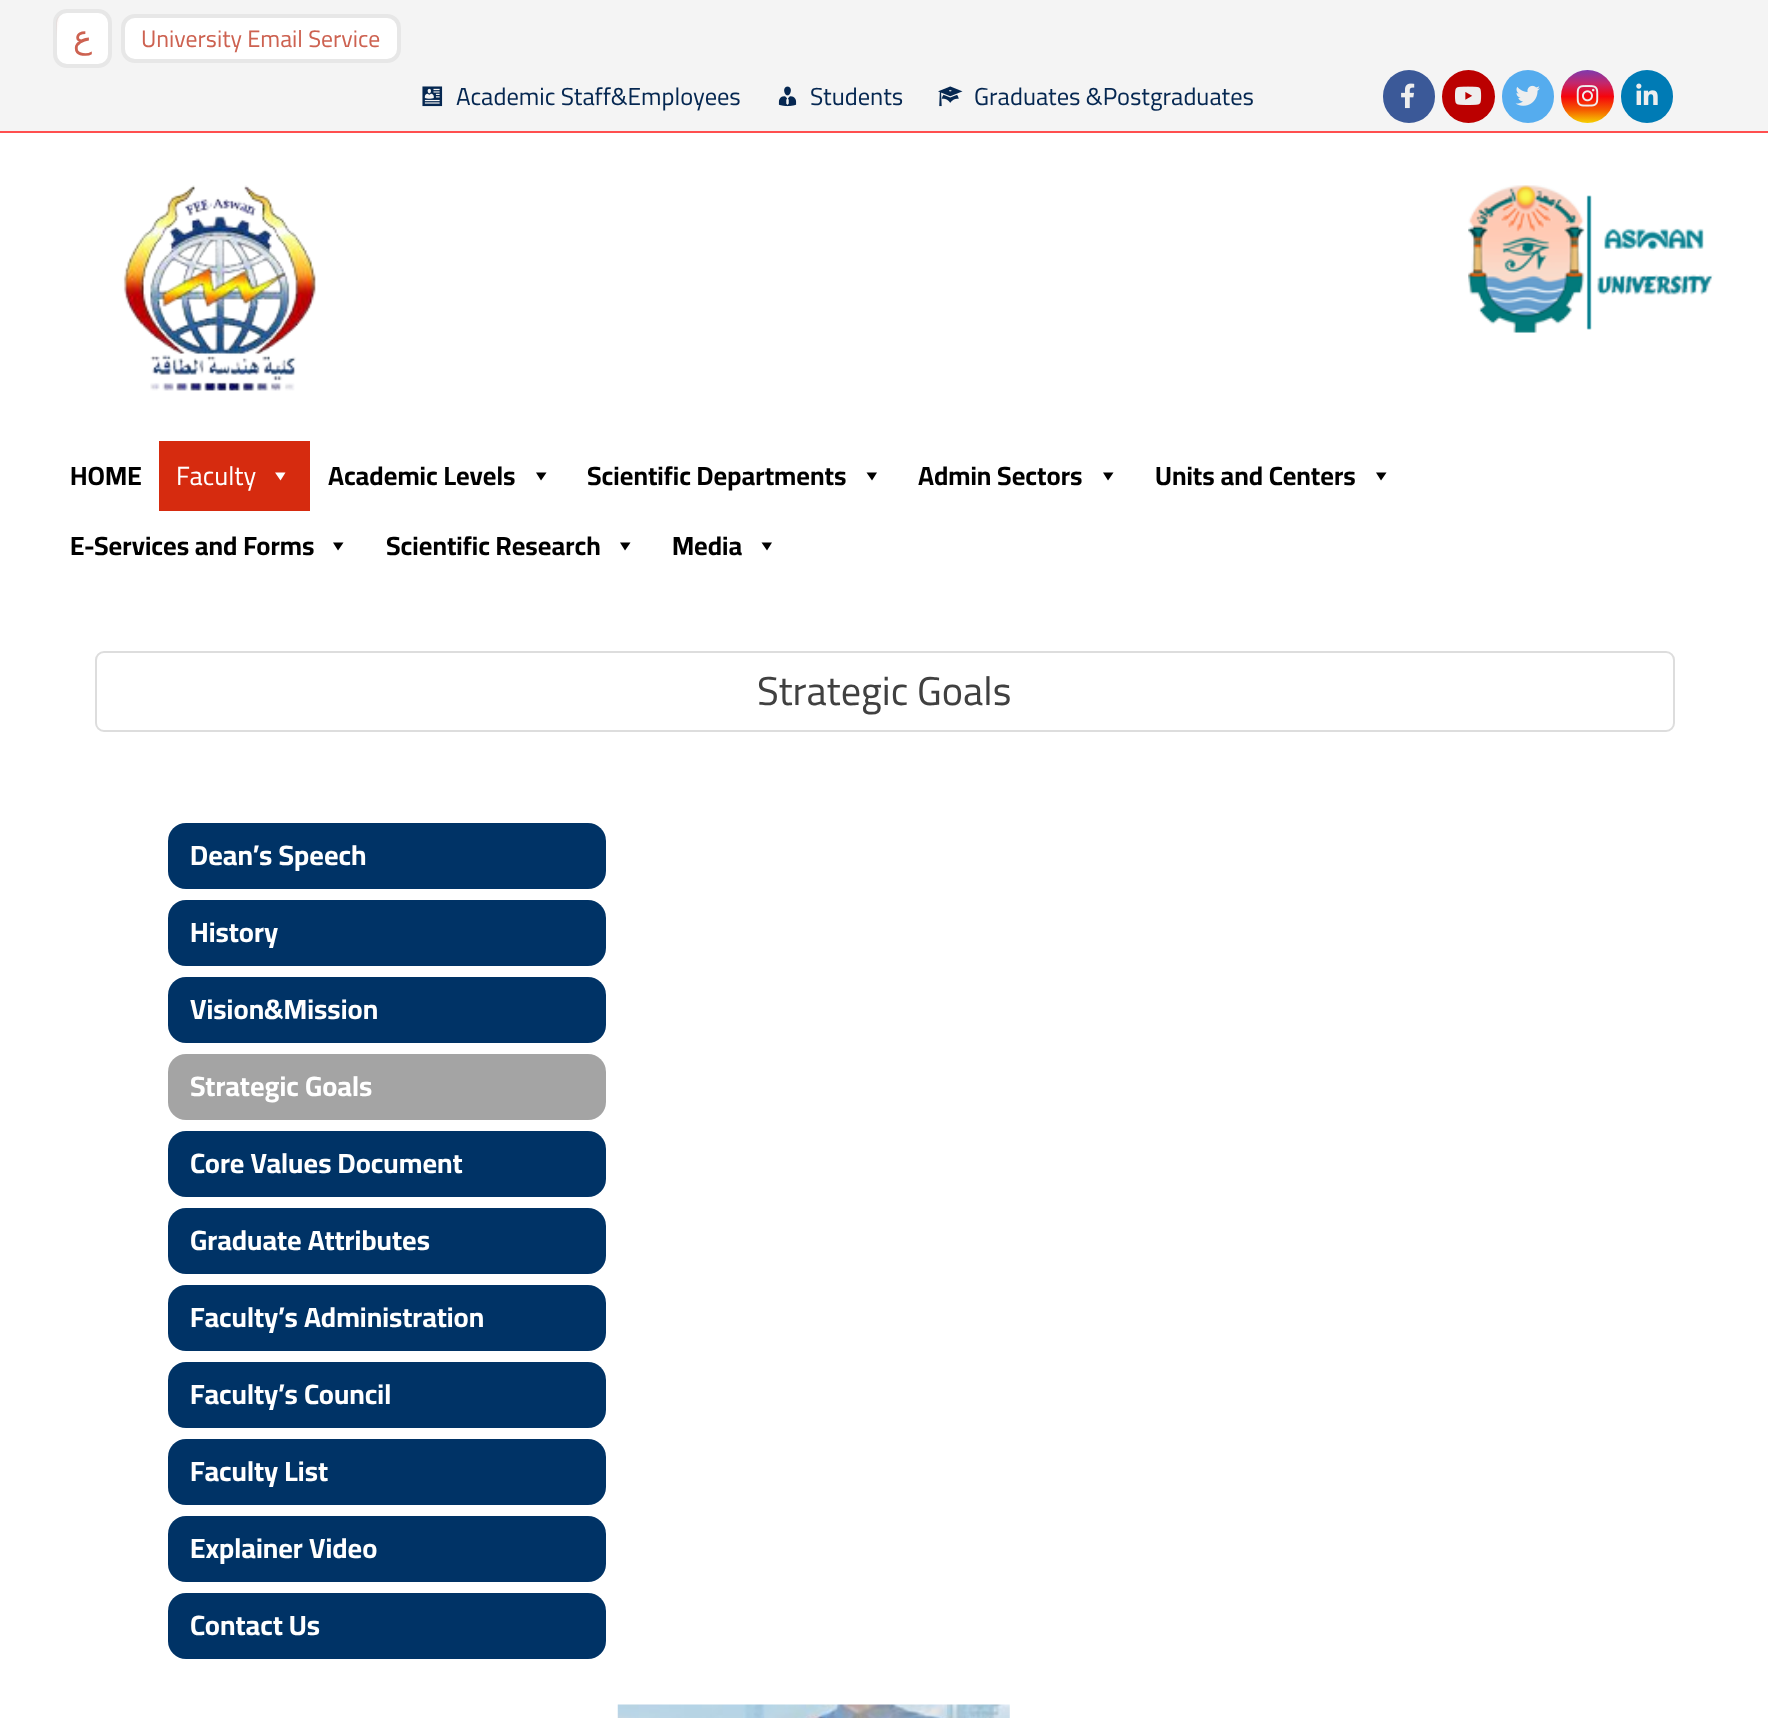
async function draw(canvas) {
  canvas.width = 1768;
  canvas.height = 1718;
  const ctx = canvas.getContext('2d');
  ctx.miterLimit = 4;
  ctx.fontKerning = 'normal';
  function label(s, x, y, font, color) {
    ctx.font = font;
    ctx.fillStyle = color;
    ctx.fillText(s, x, y);
  }
  function rect(x, y, w, h, color) {
    ctx.fillStyle = color;
    ctx.fillRect(x, y, w, h);
  }
  function roundedRect(x, y, w, h, r, color) {
    ctx.fillStyle = color;
    ctx.beginPath();
    ctx.roundRect(x, y, w, h, r);
    ctx.fill();
  }
  async function image(src, x, y, w, h) {
    const img = new Image();
    img.src = src;
    await img.decode();
    ctx.drawImage(img, x, y, w, h);
  }
  let gradient, path;

  rect(0, 0, 1768, 1718, '#fff');
  rect(0, 0, 1768, 131, '#f4f4f4');
  rect(0, 131, 1768, 2, '#ff4f4f');
  ctx.fillStyle = '#fff';
  ctx.beginPath();
  ctx.roundRect(55, 11, 55, 55, 12);
  ctx.fill();
  ctx.strokeStyle = '#e7e7e7';
  ctx.lineWidth = 4;
  ctx.stroke();
  gradient = ctx.createLinearGradient(56, 43, 4, 34);
  gradient.addColorStop(0, '#cd625100');
  gradient.addColorStop(0.4, '#cd625180');
  gradient.addColorStop(0.6, '#cd625180');
  gradient.addColorStop(1, '#cd625100');
  ctx.fillStyle = gradient;
  path = new Path2D('M61 14L56 40.5V23C56 19 58 16 61 14Z');
  ctx.fill(path);
  ctx.direction = 'rtl';
  label('ع', 92, 48, '32px DejaVu Sans', '#cd6251');
  ctx.fillStyle = '#fff';
  ctx.beginPath();
  ctx.roundRect(123, 16, 276, 45, 12);
  ctx.fill();
  ctx.stroke();
  ctx.direction = 'ltr';
  label('University Email Service', 141, 47, '23.75px Cairo', '#cd6251');
  await image('assets/img1.png', 422, 86, 21, 21);
  label('Academic Staff&Employees', 456, 105, '24.5px Cairo', '#052751');
  await image('assets/img2.png', 778, 86, 19, 21);
  label('Students', 810, 105, '24.5px Cairo', '#052751');
  await image('assets/img3.png', 938, 86, 25, 21);
  label('Graduates &Postgraduates', 974, 105, '24.5px Cairo', '#052751');
  roundedRect(1383, 70, 52, 53, 26, '#3b5998');
  await image('assets/img4.png', 1401, 83, 14, 26);
  ctx.fillStyle = '#b00';
  ctx.beginPath();
  ctx.arc(1468.5, 96.5, 26.5, 0, 2 * Math.PI);
  ctx.fill();
  await image('assets/img5.png', 1454, 86, 28, 19);
  roundedRect(1502, 70, 52, 53, 26, '#55acee');
  await image('assets/img6.png', 1515, 85, 25, 21);
  gradient = ctx.createLinearGradient(1587, 70, 1587, 123);
  gradient.addColorStop(0, '#7d3aae');
  gradient.addColorStop(0.25, '#c4276b');
  gradient.addColorStop(0.5, '#f6040c');
  gradient.addColorStop(0.75, '#f55900');
  gradient.addColorStop(1, '#f6d000');
  ctx.fillStyle = gradient;
  ctx.beginPath();
  ctx.arc(1587.5, 96.5, 26.5, 0, 2 * Math.PI);
  ctx.fill();
  await image('assets/img7.png', 1576, 85, 23, 22);
  roundedRect(1621, 70, 52, 53, 26, '#007bb5');
  await image('assets/img8.png', 1636, 83, 22, 22);
  await image('assets/img9.png', 123, 185, 193, 206);
  await image('assets/img10.png', 1468, 185, 246, 148);
  label('HOME', 70, 485, 'bold 26.25px Cairo', '#000');
  rect(159, 441, 151, 70, '#d62b0f');
  label('Faculty', 176, 485, '26.25px Cairo', '#fff');
  path = new Path2D('M285.5 472.5L280.5 480.5L275 472.5Z');
  ctx.fill(path);
  label('Academic Levels', 328, 485, 'bold 26.25px Cairo', '#000');
  path = new Path2D('M546.5 472.5L541 480.5L536 472.5Z');
  ctx.fill(path);
  label('Scientific Departments', 587, 485, 'bold 26.25px Cairo', '#000');
  path = new Path2D('M877 472.5L872 480.5L866.5 472.5Z');
  ctx.fill(path);
  label('Admin Sectors', 918, 485, 'bold 26.25px Cairo', '#000');
  path = new Path2D('M1113.5 472.5L1108 480.5L1103 472.5Z');
  ctx.fill(path);
  label('Units and Centers', 1155, 485, 'bold 26.25px Cairo', '#000');
  path = new Path2D('M1386.5 472.5L1381 480.5L1376 472.5Z');
  ctx.fill(path);
  label('E-Services and Forms', 70, 555, 'bold 26.25px Cairo', '#000');
  path = new Path2D('M343.5 542.5L338 550.5L333 542.5Z');
  ctx.fill(path);
  label('Scientific Research', 386, 555, 'bold 26.25px Cairo', '#000');
  path = new Path2D('M630.5 542.5L625 550.5L620 542.5Z');
  ctx.fill(path);
  label('Media', 672, 555, 'bold 26.25px Cairo', '#000');
  path = new Path2D('M772 542.5L767 550.5L761.5 542.5Z');
  ctx.fill(path);
  ctx.beginPath();
  ctx.roundRect(96, 652, 1578, 79, 8);
  ctx.strokeStyle = '#ddd';
  ctx.lineWidth = 2;
  ctx.stroke();
  label('Strategic Goals', 757, 705, '40.25px Cairo', '#404040');
  roundedRect(168, 823, 438, 66, 18, '#036');
  label('Dean’s Speech', 190, 865, 'bold 28px Cairo', '#fff');
  roundedRect(168, 900, 438, 66, 18, '#036');
  label('History', 190, 942, 'bold 28px Cairo', '#fff');
  roundedRect(168, 977, 438, 66, 18, '#036');
  label('Vision&Mission', 190, 1019, 'bold 28px Cairo', '#fff');
  roundedRect(168, 1054, 438, 66, 18, '#a4a4a4');
  label('Strategic Goals', 190, 1096, 'bold 28px Cairo', '#fff');
  roundedRect(168, 1131, 438, 66, 18, '#036');
  label('Core Values Document', 190, 1173, 'bold 28px Cairo', '#fff');
  roundedRect(168, 1208, 438, 66, 18, '#036');
  label('Graduate Attributes', 190, 1250, 'bold 28px Cairo', '#fff');
  roundedRect(168, 1285, 438, 66, 18, '#036');
  label('Faculty’s Administration', 190, 1327, 'bold 28px Cairo', '#fff');
  roundedRect(168, 1362, 438, 66, 18, '#036');
  label('Faculty’s Council', 190, 1404, 'bold 28px Cairo', '#fff');
  roundedRect(168, 1439, 438, 66, 18, '#036');
  label('Faculty List', 190, 1481, 'bold 28px Cairo', '#fff');
  roundedRect(168, 1516, 438, 66, 18, '#036');
  label('Explainer Video', 190, 1558, 'bold 28px Cairo', '#fff');
  roundedRect(168, 1593, 438, 66, 18, '#036');
  label('Contact Us', 190, 1635, 'bold 28px Cairo', '#fff');
  await image('assets/img11.png', 617, 1704, 393, 14);
}

draw(document.querySelector('canvas'));
